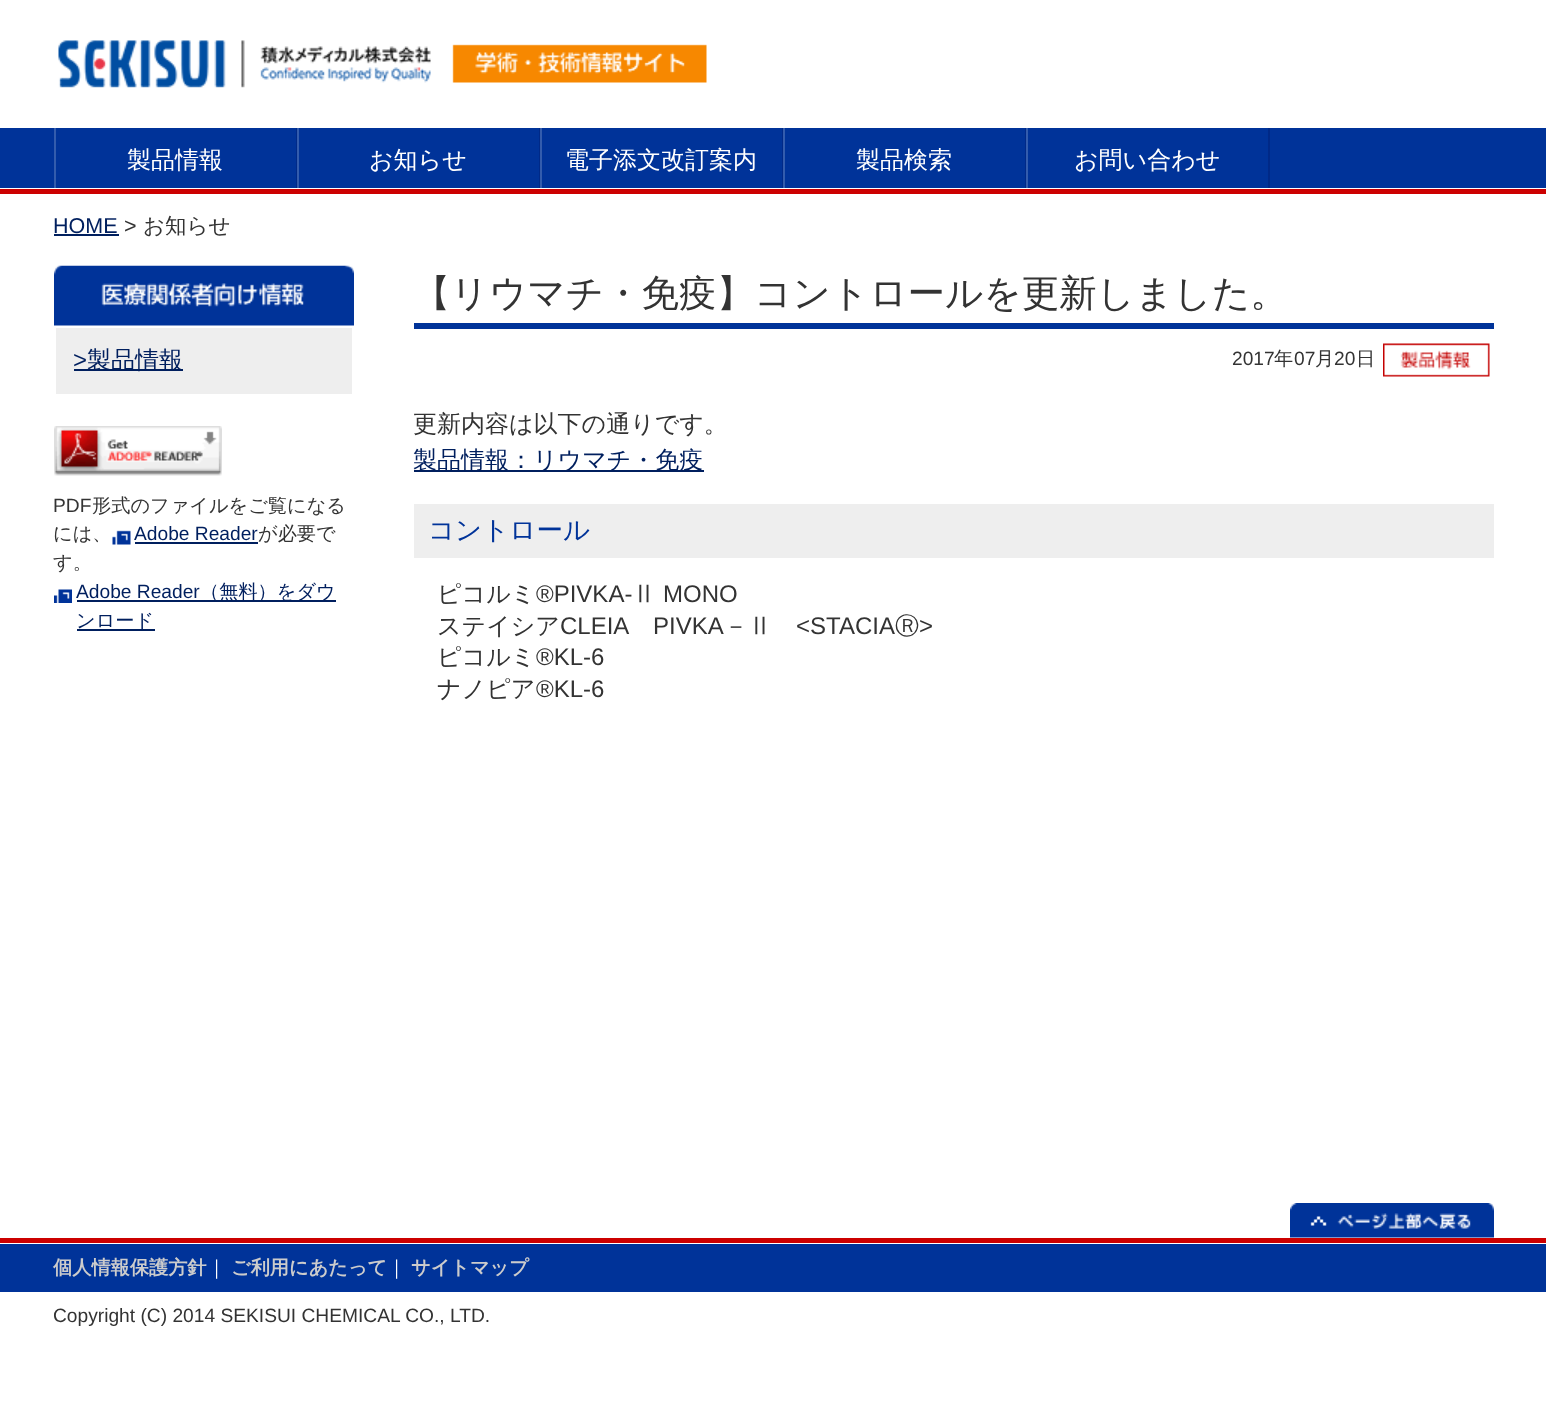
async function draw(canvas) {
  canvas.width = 1546;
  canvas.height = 1411;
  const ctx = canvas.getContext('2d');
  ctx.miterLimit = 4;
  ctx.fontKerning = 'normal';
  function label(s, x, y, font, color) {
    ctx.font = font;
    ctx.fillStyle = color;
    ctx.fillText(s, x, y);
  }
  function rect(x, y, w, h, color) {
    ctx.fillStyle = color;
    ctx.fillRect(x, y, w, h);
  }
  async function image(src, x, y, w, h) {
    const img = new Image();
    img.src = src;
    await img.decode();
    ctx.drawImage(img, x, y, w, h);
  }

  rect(0, 0, 1546, 1411, '#fff');
  await image('assets/img1.png', 58, 40, 649, 48);
  rect(0, 189, 1546, 5, '#c00');
  rect(0, 128, 1546, 60, '#039');
  rect(296, 128, 1, 60, '#002987');
  rect(54, 128, 2, 60, '#335cad');
  label('製品情報', 127, 168, '500 24px WenQuanYi Zen Hei', '#fff');
  rect(539, 128, 1, 60, '#002987');
  rect(297, 128, 2, 60, '#335cad');
  label('お知らせ', 369, 168, '500 24px WenQuanYi Zen Hei', '#fff');
  rect(782, 128, 1, 60, '#002987');
  rect(540, 128, 2, 60, '#335cad');
  label('電子添文改訂案内', 565, 168, '500 24px WenQuanYi Zen Hei', '#fff');
  rect(1025, 128, 1, 60, '#002987');
  rect(783, 128, 2, 60, '#335cad');
  label('製品検索', 856, 168, '500 24px WenQuanYi Zen Hei', '#fff');
  rect(1268, 128, 2, 60, '#002987');
  rect(1026, 128, 2, 60, '#335cad');
  label('お問い合わせ', 1074, 168, '500 24px WenQuanYi Zen Hei', '#fff');
  label('HOME', 53, 233, '21.5px Liberation Sans', '#001f5e');
  rect(54, 234, 65, 2, '#001f5e');
  label('>', 124, 233, '21.5px Liberation Sans', '#333');
  label('お知らせ', 143, 233, '500 21.5px WenQuanYi Zen Hei', '#333');
  await image('assets/img2.png', 54, 265, 300, 61);
  rect(56, 328, 296, 66, '#eee');
  label('>', 73, 368, '24px Liberation Sans', '#001f5e');
  rect(74, 369, 109, 2, '#001f5e');
  label('製品情報', 87, 368, '500 24px WenQuanYi Zen Hei', '#001f5e');
  await image('assets/img3.png', 54, 426, 168, 50);
  label('PDF', 53, 512, '19.2px Liberation Sans', '#333');
  label('形式のファイルをご覧になる', 92, 512, '500 19.2px WenQuanYi Zen Hei', '#333');
  label('には、', 53, 540, '500 19.2px WenQuanYi Zen Hei', '#333');
  await image('assets/img4.png', 112, 530, 19, 15);
  label('Adobe Reader', 134, 540, '19.2px Liberation Sans', '#001f5e');
  rect(135, 542, 123, 2, '#001f5e');
  label('が必要で', 258, 540, '500 19.2px WenQuanYi Zen Hei', '#333');
  label('す。', 53, 569, '500 19.2px WenQuanYi Zen Hei', '#333');
  await image('assets/img5.png', 54, 589, 18, 14);
  label('Adobe Reader', 76, 598, '19.2px Liberation Sans', '#001f5e');
  rect(77, 600, 259, 2, '#001f5e');
  label('（無料）をダウ', 200, 598, '500 19.2px WenQuanYi Zen Hei', '#001f5e');
  rect(77, 629, 78, 2, '#001f5e');
  label('ンロード', 76, 627, '500 19.2px WenQuanYi Zen Hei', '#001f5e');
  rect(414, 323, 1080, 6, '#039');
  label('【リウマチ・免疫】コントロールを更新しました。', 413, 306, '500 37.5px WenQuanYi Zen Hei', '#333');
  label('2017', 1232, 365, '19.2px Liberation Sans', '#333');
  label('年', 1274, 365, '500 19.2px WenQuanYi Zen Hei', '#333');
  label('07', 1294, 365, '19.2px Liberation Sans', '#333');
  label('月', 1315, 365, '500 19.2px WenQuanYi Zen Hei', '#333');
  label('20', 1334, 365, '19.2px Liberation Sans', '#333');
  label('日', 1356, 365, '500 19.2px WenQuanYi Zen Hei', '#333');
  await image('assets/img6.png', 1383, 343, 107, 34);
  label('更新内容は以下の通りです。', 413, 432, '500 24px WenQuanYi Zen Hei', '#333');
  rect(414, 470, 290, 2, '#001f5e');
  label('製品情報：リウマチ・免疫', 413, 468, '500 24px WenQuanYi Zen Hei', '#001f5e');
  rect(414, 504, 1080, 54, '#eee');
  label('コントロール', 428, 539, '500 26.5px WenQuanYi Zen Hei', '#039');
  label('ピコルミ', 437, 602, '500 24px WenQuanYi Zen Hei', '#333');
  label('®PIVKA-', 536, 602, '24px Liberation Sans', '#333');
  label('Ⅱ', 632, 602, '500 24px WenQuanYi Zen Hei', '#333');
  label('MONO', 663, 602, '24px Liberation Sans', '#333');
  label('ステイシア', 437, 634, '500 24px WenQuanYi Zen Hei', '#333');
  label('CLEIA', 560, 634, '24px Liberation Sans', '#333');
  label('PIVKA', 653, 634, '24px Liberation Sans', '#333');
  label('－Ⅱ', 724, 634, '500 24px WenQuanYi Zen Hei', '#333');
  label('<STACIA', 796, 634, '24px Liberation Sans', '#333');
  label('Ⓡ', 895, 634, '500 24px WenQuanYi Zen Hei', '#333');
  label('>', 919, 634, '24px Liberation Sans', '#333');
  label('ピコルミ', 437, 665, '500 24px WenQuanYi Zen Hei', '#333');
  label('®KL-6', 536, 665, '24px Liberation Sans', '#333');
  label('ナノピア', 437, 697, '500 24px WenQuanYi Zen Hei', '#333');
  label('®KL-6', 536, 697, '24px Liberation Sans', '#333');
  await image('assets/img7.png', 1290, 1203, 204, 35);
  rect(0, 1238, 1546, 5, '#c00');
  rect(0, 1244, 1546, 48, '#039');
  label('個人情報保護方針', 53, 1274, 'bold 19.2px WenQuanYi Zen Hei', '#ccc');
  label('｜', 207, 1274, '500 19.2px WenQuanYi Zen Hei', '#fff');
  label('ご利用にあたって', 231, 1274, 'bold 19.2px WenQuanYi Zen Hei', '#ccc');
  label('｜', 387, 1274, '500 19.2px WenQuanYi Zen Hei', '#fff');
  label('サイトマップ', 411, 1274, 'bold 19.2px WenQuanYi Zen Hei', '#ccc');
  label('Copyright (C) 2014 SEKISUI CHEMICAL CO., LTD.', 53, 1322, '19.2px Liberation Sans', '#333');
}

draw(document.querySelector('canvas'));
